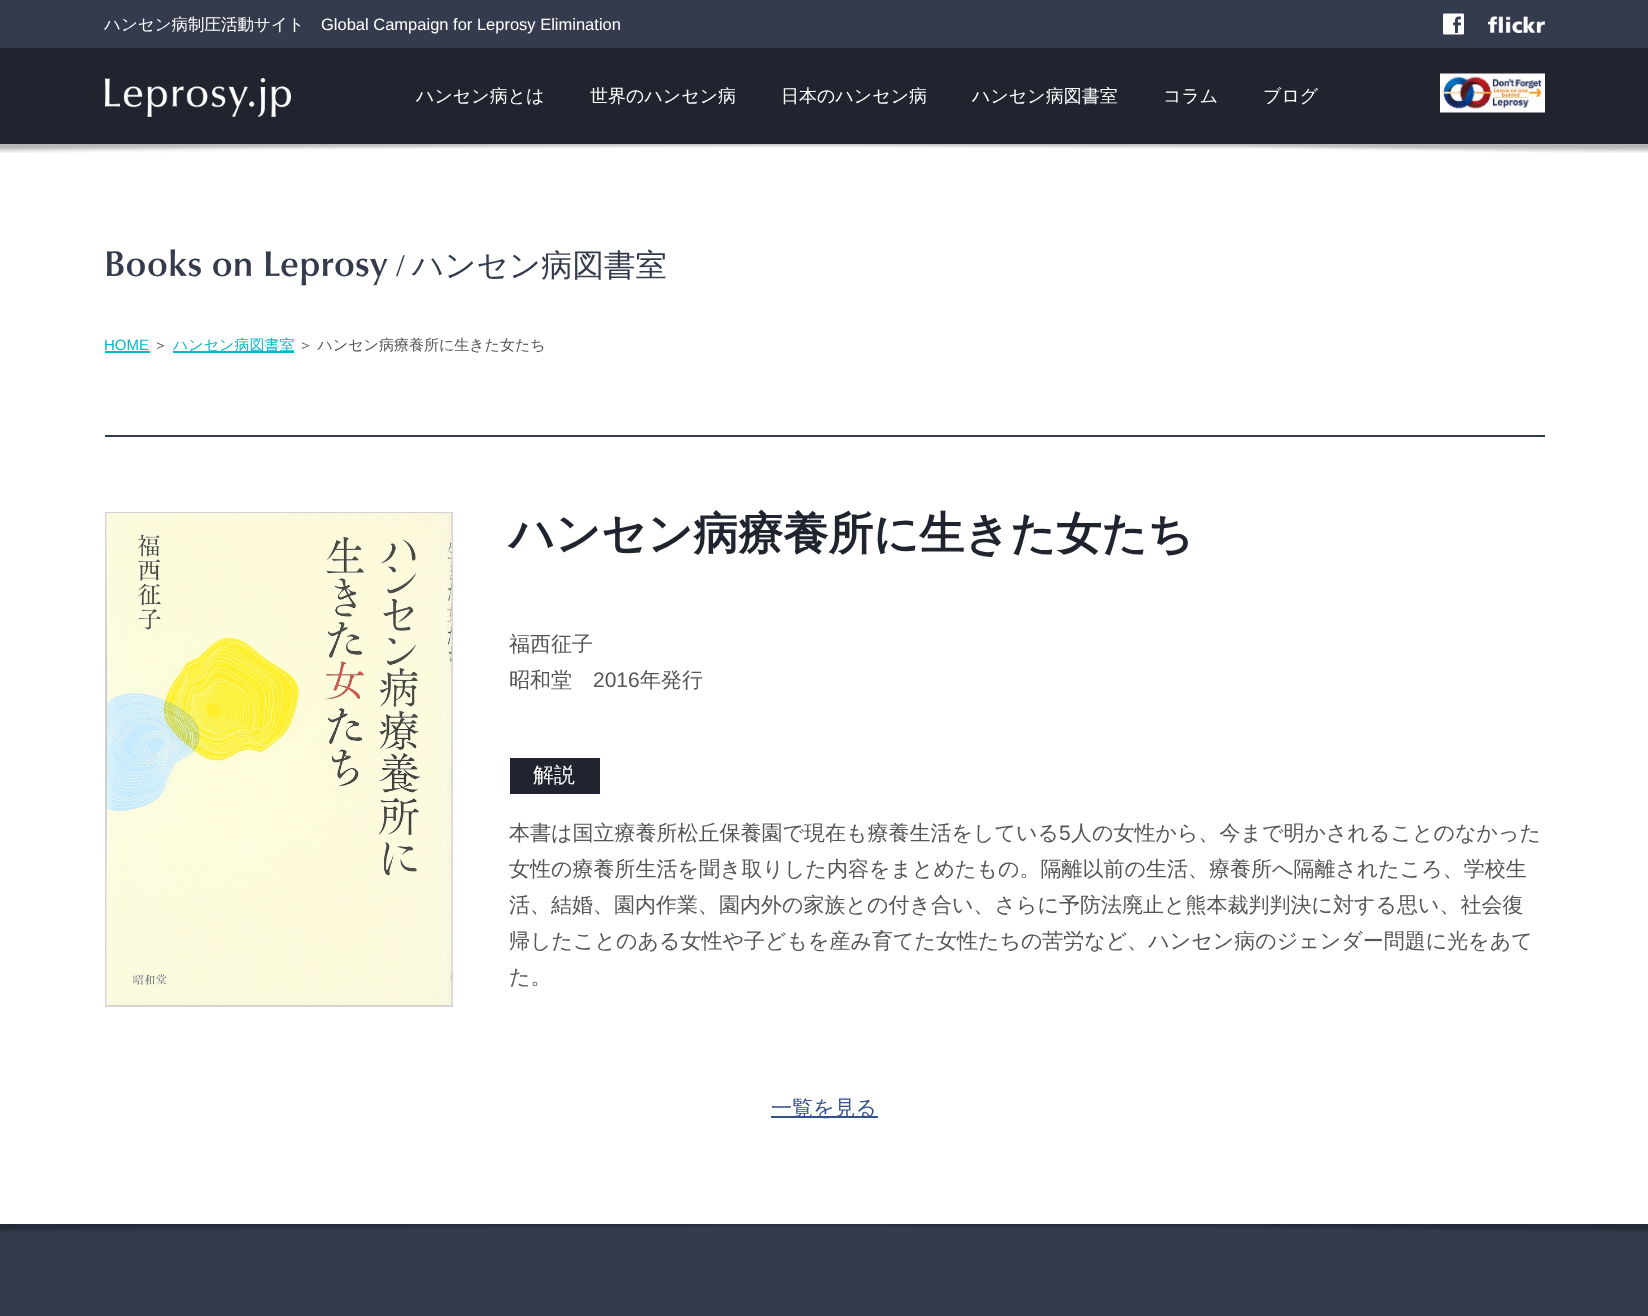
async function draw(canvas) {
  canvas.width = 1648;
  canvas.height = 1316;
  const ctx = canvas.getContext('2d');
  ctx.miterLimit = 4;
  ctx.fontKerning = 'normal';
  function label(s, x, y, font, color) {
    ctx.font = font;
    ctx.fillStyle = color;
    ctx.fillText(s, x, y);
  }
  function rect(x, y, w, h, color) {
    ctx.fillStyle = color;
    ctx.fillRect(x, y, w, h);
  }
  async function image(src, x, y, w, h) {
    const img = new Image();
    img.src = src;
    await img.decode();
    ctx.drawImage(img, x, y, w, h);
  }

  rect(0, 0, 1648, 1316, '#1f242f');
  rect(0, 0, 1648, 48, '#333b4d');
  label('ハンセン病制圧活動サイト', 104, 30, '500 16.5px WenQuanYi Zen Hei', '#fff');
  label('Global Campaign for Leprosy Elimination', 321, 30, '16.5px Liberation Sans', '#fff');
  await image('assets/img1.png', 1443, 13, 21, 22);
  await image('assets/img2.png', 1488, 16, 57, 17);
  await image('assets/img3.png', 105, 78, 186, 39);
  label('ハンセン病とは', 416, 102, '500 18px WenQuanYi Zen Hei', '#fff');
  label('世界のハンセン病', 590, 102, '500 18px WenQuanYi Zen Hei', '#fff');
  label('日本のハンセン病', 781, 102, '500 18px WenQuanYi Zen Hei', '#fff');
  label('ハンセン病図書室', 972, 102, '500 18px WenQuanYi Zen Hei', '#fff');
  label('コラム', 1163, 102, '500 18px WenQuanYi Zen Hei', '#fff');
  label('ブログ', 1263, 102, '500 18px WenQuanYi Zen Hei', '#fff');
  await image('assets/img4.png', 1440, 73, 105, 40);
  rect(0, 144, 1648, 1080, '#fff');
  await image('assets/img5.png', 0, 144, 1648, 9);
  label('Books on Leprosy', 104, 276, '36px Optima', '#333b4d');
  label('/', 396, 276, '31.5px Liberation Serif', '#333b4d');
  label('ハンセン病図書室', 412, 276, '500 31.5px WenQuanYi Zen Hei', '#333b4d');
  label('HOME', 104, 350, '15px Liberation Sans', '#0cb4c8');
  rect(105, 351, 45, 2, '#0cb4c8');
  label('＞', 153, 350, '500 15px WenQuanYi Zen Hei', '#555');
  rect(173, 351, 121, 2, '#0cb4c8');
  label('ハンセン病図書室', 173, 350, '500 15px WenQuanYi Zen Hei', '#0cb4c8');
  label('＞ ハンセン病療養所に生きた女たち', 298, 350, '500 15px WenQuanYi Zen Hei', '#555');
  rect(105, 435, 1440, 2, '#333b4d');
  ctx.strokeStyle = '#d4d4d4';
  ctx.lineWidth = 2;
  ctx.strokeRect(106, 513, 346, 493);
  await image('assets/img6.png', 106, 513, 346, 492);
  label('ハンセン病療養所に生きた女たち', 509, 549, 'bold 45px WenQuanYi Zen Hei', '#1f242f');
  label('福西征子', 509, 651, '500 21px WenQuanYi Zen Hei', '#555');
  label('昭和堂', 509, 687, '500 21px WenQuanYi Zen Hei', '#555');
  label('2016', 593, 687, '21px Liberation Sans', '#555');
  label('年発行', 640, 687, '500 21px WenQuanYi Zen Hei', '#555');
  rect(510, 758, 90, 36, '#1f242f');
  label('解説', 533, 782, '500 21px WenQuanYi Zen Hei', '#fff');
  label('本書は国立療養所松丘保養園で現在も療養生活をしている', 509, 840, '500 21px WenQuanYi Zen Hei', '#555');
  label('5', 1059, 840, '21px Liberation Sans', '#555');
  label('人の女性から、今まで明かされることのなかった', 1071, 840, '500 21px WenQuanYi Zen Hei', '#555');
  label('女性の療養所生活を聞き取りした内容をまとめたもの。隔離以前の生活、療養所へ隔離されたころ、学校生', 509, 876, '500 21px WenQuanYi Zen Hei', '#555');
  label('活、結婚、園内作業、園内外の家族との付き合い、さらに予防法廃止と熊本裁判判決に対する思い、社会復', 509, 912, '500 21px WenQuanYi Zen Hei', '#555');
  label('帰したことのある女性や子どもを産み育てた女性たちの苦労など、ハンセン病のジェンダー問題に光をあて', 509, 948, '500 21px WenQuanYi Zen Hei', '#555');
  label('た。', 509, 984, '500 21px WenQuanYi Zen Hei', '#555');
  rect(771, 1116, 107, 2, '#34508e');
  label('一覧を見る', 771, 1115, '500 21px WenQuanYi Zen Hei', '#34508e');
  rect(0, 1224, 1648, 92, '#333b4d');
  await image('assets/img7.png', 0, 1224, 1648, 9);
}

draw(document.querySelector('canvas'));
